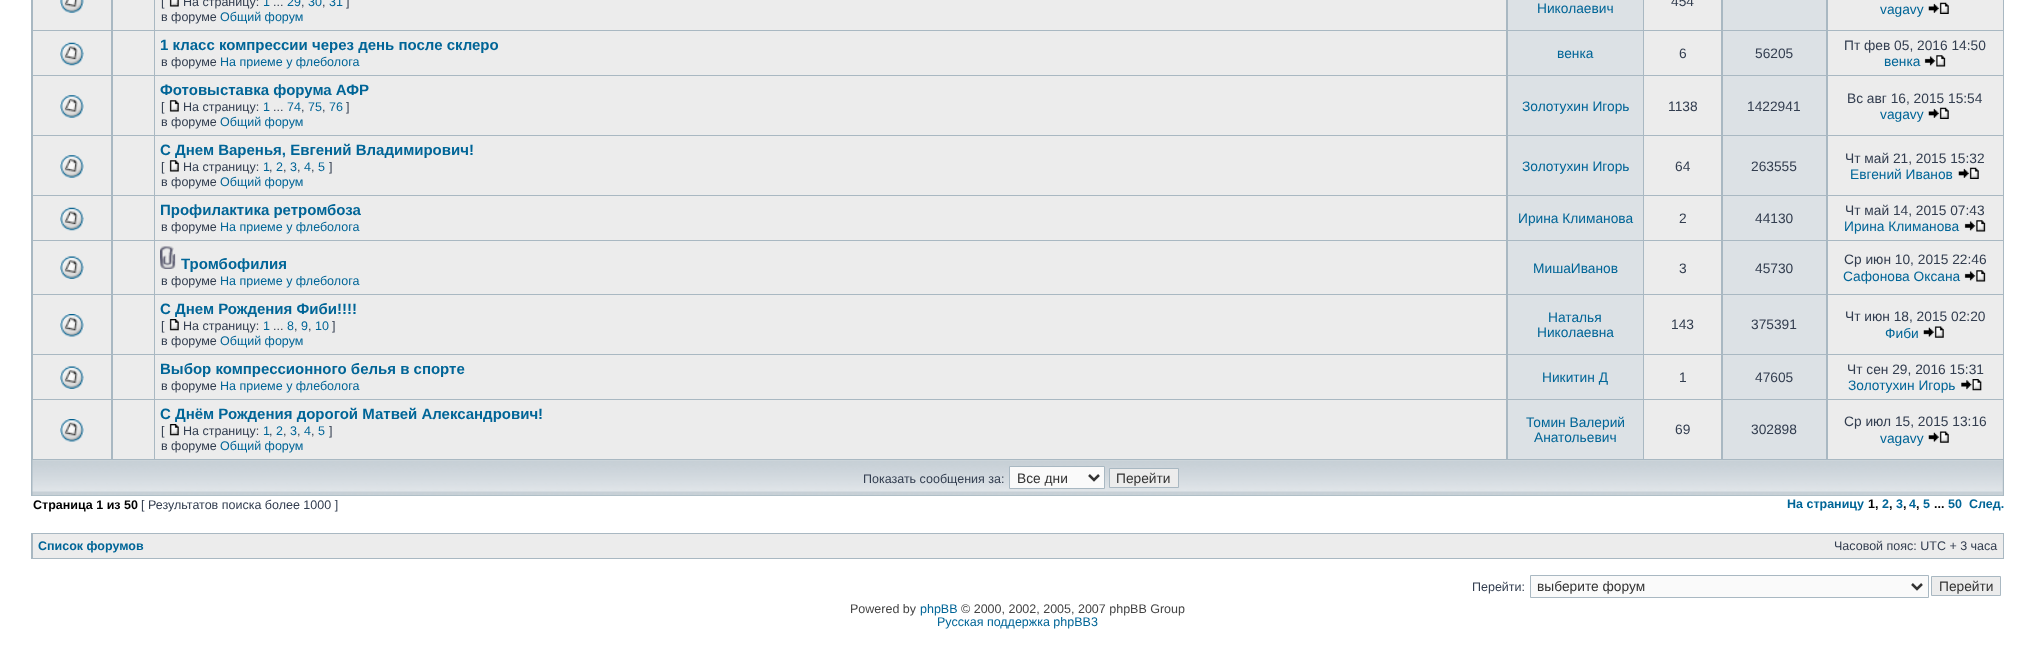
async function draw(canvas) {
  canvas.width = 2035;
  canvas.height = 669;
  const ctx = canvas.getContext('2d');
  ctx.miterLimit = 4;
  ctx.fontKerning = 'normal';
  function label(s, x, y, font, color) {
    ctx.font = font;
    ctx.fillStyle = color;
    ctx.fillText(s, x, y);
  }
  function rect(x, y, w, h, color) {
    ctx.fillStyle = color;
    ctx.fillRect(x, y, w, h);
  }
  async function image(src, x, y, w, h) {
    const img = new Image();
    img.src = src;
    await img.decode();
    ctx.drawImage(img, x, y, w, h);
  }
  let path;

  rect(0, 0, 2035, 669, '#fff');
  rect(31, 0, 1973, 496, '#a9b8c2');
  rect(33, 0, 78, 30, '#ececec');
  await image('assets/img1.png', 60, 0, 24, 13);
  rect(113, 0, 41, 30, '#ececec');
  rect(155, 0, 1351, 30, '#ececec');
  label('[', 161, 6, '12.5px Liberation Sans', '#323d4f');
  await image('assets/img2.png', 169, 0, 10, 7);
  label('На страницу:', 183, 6, '12.5px Liberation Sans', '#323d4f');
  label('1', 263, 6, '12.5px Liberation Sans', '#006597');
  label('...', 273, 6, '12.5px Liberation Sans', '#323d4f');
  label('29', 287, 6, '12.5px Liberation Sans', '#006597');
  label(',', 301, 6, '12.5px Liberation Sans', '#323d4f');
  label('30', 308, 6, '12.5px Liberation Sans', '#006597');
  label(',', 322, 6, '12.5px Liberation Sans', '#323d4f');
  label('31', 329, 6, '12.5px Liberation Sans', '#006597');
  label(']', 346, 6, '12.5px Liberation Sans', '#323d4f');
  label('в форуме', 161, 21, '12.5px Liberation Sans', '#323d4f');
  label('Общий форум', 220, 21, '12.5px Liberation Sans', '#006597');
  rect(1508, 0, 135, 30, '#dce1e5');
  label('Николаевич', 1537, 13, '13.75px Liberation Sans', '#006597');
  rect(1644, 0, 77, 30, '#ececec');
  label('454', 1671, 6, '13.75px Liberation Sans', '#323d4f');
  rect(1723, 0, 103, 30, '#dce1e5');
  rect(1828, 0, 175, 30, '#ececec');
  label('vagavy', 1880, 14, '13.75px Liberation Sans', '#006597');
  await image('assets/img3.png', 1928, 2, 21, 12);
  rect(33, 31, 78, 44, '#ececec');
  await image('assets/img4.png', 60, 42, 24, 24);
  rect(113, 31, 41, 44, '#ececec');
  rect(155, 31, 1351, 44, '#ececec');
  label('1 класс компрессии через день после склеро', 160, 50, 'bold 15px Liberation Sans', '#006597');
  label('в форуме', 161, 66, '12.5px Liberation Sans', '#323d4f');
  label('На приеме у флеболога', 220, 66, '12.5px Liberation Sans', '#006597');
  rect(1508, 31, 135, 44, '#dce1e5');
  label('венка', 1557, 58, '13.75px Liberation Sans', '#006597');
  rect(1644, 31, 77, 44, '#ececec');
  label('6', 1679, 58, '13.75px Liberation Sans', '#323d4f');
  rect(1723, 31, 103, 44, '#dce1e5');
  label('56205', 1755, 58, '13.75px Liberation Sans', '#323d4f');
  rect(1828, 31, 175, 44, '#ececec');
  label('Пт фев 05, 2016 14:50', 1844, 50, '13.75px Liberation Sans', '#323d4f');
  label('венка', 1884, 66, '13.75px Liberation Sans', '#006597');
  await image('assets/img5.png', 1924, 55, 22, 12);
  rect(33, 76, 78, 59, '#ececec');
  await image('assets/img6.png', 60, 95, 24, 23);
  rect(113, 76, 41, 59, '#ececec');
  rect(155, 76, 1351, 59, '#ececec');
  label('Фотовыставка форума АФР', 160, 95, 'bold 15px Liberation Sans', '#006597');
  label('[', 161, 111, '12.5px Liberation Sans', '#323d4f');
  await image('assets/img7.png', 169, 100, 10, 12);
  label('На страницу:', 183, 111, '12.5px Liberation Sans', '#323d4f');
  label('1', 263, 111, '12.5px Liberation Sans', '#006597');
  label('...', 273, 111, '12.5px Liberation Sans', '#323d4f');
  label('74', 287, 111, '12.5px Liberation Sans', '#006597');
  label(',', 301, 111, '12.5px Liberation Sans', '#323d4f');
  label('75', 308, 111, '12.5px Liberation Sans', '#006597');
  label(',', 322, 111, '12.5px Liberation Sans', '#323d4f');
  label('76', 329, 111, '12.5px Liberation Sans', '#006597');
  label(']', 346, 111, '12.5px Liberation Sans', '#323d4f');
  label('в форуме', 161, 126, '12.5px Liberation Sans', '#323d4f');
  label('Общий форум', 220, 126, '12.5px Liberation Sans', '#006597');
  rect(1508, 76, 135, 59, '#dce1e5');
  label('Золотухин Игорь', 1522, 111, '13.75px Liberation Sans', '#006597');
  rect(1644, 76, 77, 59, '#ececec');
  label('1138', 1668, 111, '13.75px Liberation Sans', '#323d4f');
  rect(1723, 76, 103, 59, '#dce1e5');
  label('1422941', 1747, 111, '13.75px Liberation Sans', '#323d4f');
  rect(1828, 76, 175, 59, '#ececec');
  label('Вс авг 16, 2015 15:54', 1847, 103, '13.75px Liberation Sans', '#323d4f');
  label('vagavy', 1880, 119, '13.75px Liberation Sans', '#006597');
  await image('assets/img3.png', 1928, 107, 21, 12);
  rect(33, 136, 78, 59, '#ececec');
  await image('assets/img6.png', 60, 155, 24, 23);
  rect(113, 136, 41, 59, '#ececec');
  rect(155, 136, 1351, 59, '#ececec');
  label('С Днем Варенья, Евгений Владимирович!', 160, 155, 'bold 15px Liberation Sans', '#006597');
  label('[', 161, 171, '12.5px Liberation Sans', '#323d4f');
  await image('assets/img7.png', 169, 160, 10, 12);
  label('На страницу:', 183, 171, '12.5px Liberation Sans', '#323d4f');
  label('1', 263, 171, '12.5px Liberation Sans', '#006597');
  label(',', 269, 171, '12.5px Liberation Sans', '#323d4f');
  label('2', 276, 171, '12.5px Liberation Sans', '#006597');
  label(',', 283, 171, '12.5px Liberation Sans', '#323d4f');
  label('3', 290, 171, '12.5px Liberation Sans', '#006597');
  label(',', 297, 171, '12.5px Liberation Sans', '#323d4f');
  label('4', 304, 171, '12.5px Liberation Sans', '#006597');
  label(',', 311, 171, '12.5px Liberation Sans', '#323d4f');
  label('5', 318, 171, '12.5px Liberation Sans', '#006597');
  label(']', 329, 171, '12.5px Liberation Sans', '#323d4f');
  label('в форуме', 161, 186, '12.5px Liberation Sans', '#323d4f');
  label('Общий форум', 220, 186, '12.5px Liberation Sans', '#006597');
  rect(1508, 136, 135, 59, '#dce1e5');
  label('Золотухин Игорь', 1522, 171, '13.75px Liberation Sans', '#006597');
  rect(1644, 136, 77, 59, '#ececec');
  label('64', 1675, 171, '13.75px Liberation Sans', '#323d4f');
  rect(1723, 136, 103, 59, '#dce1e5');
  label('263555', 1751, 171, '13.75px Liberation Sans', '#323d4f');
  rect(1828, 136, 175, 59, '#ececec');
  label('Чт май 21, 2015 15:32', 1845, 163, '13.75px Liberation Sans', '#323d4f');
  label('Евгений Иванов', 1850, 179, '13.75px Liberation Sans', '#006597');
  await image('assets/img3.png', 1958, 167, 21, 12);
  rect(33, 196, 78, 44, '#ececec');
  await image('assets/img4.png', 60, 207, 24, 24);
  rect(113, 196, 41, 44, '#ececec');
  rect(155, 196, 1351, 44, '#ececec');
  label('Профилактика ретромбоза', 160, 215, 'bold 15px Liberation Sans', '#006597');
  label('в форуме', 161, 231, '12.5px Liberation Sans', '#323d4f');
  label('На приеме у флеболога', 220, 231, '12.5px Liberation Sans', '#006597');
  rect(1508, 196, 135, 44, '#dce1e5');
  label('Ирина Климанова', 1518, 223, '13.75px Liberation Sans', '#006597');
  rect(1644, 196, 77, 44, '#ececec');
  label('2', 1679, 223, '13.75px Liberation Sans', '#323d4f');
  rect(1723, 196, 103, 44, '#dce1e5');
  label('44130', 1755, 223, '13.75px Liberation Sans', '#323d4f');
  rect(1828, 196, 175, 44, '#ececec');
  label('Чт май 14, 2015 07:43', 1845, 215, '13.75px Liberation Sans', '#323d4f');
  label('Ирина Климанова', 1844, 231, '13.75px Liberation Sans', '#006597');
  await image('assets/img8.png', 1964, 220, 22, 12);
  rect(33, 241, 78, 53, '#ececec');
  await image('assets/img9.png', 60, 256, 24, 23);
  rect(113, 241, 41, 53, '#ececec');
  rect(155, 241, 1351, 53, '#ececec');
  await image('assets/img10.png', 160, 246, 16, 23);
  label('Тромбофилия', 181, 269, 'bold 15px Liberation Sans', '#006597');
  label('в форуме', 161, 285, '12.5px Liberation Sans', '#323d4f');
  label('На приеме у флеболога', 220, 285, '12.5px Liberation Sans', '#006597');
  rect(1508, 241, 135, 53, '#dce1e5');
  label('МишаИванов', 1533, 273, '13.75px Liberation Sans', '#006597');
  rect(1644, 241, 77, 53, '#ececec');
  label('3', 1679, 273, '13.75px Liberation Sans', '#323d4f');
  rect(1723, 241, 103, 53, '#dce1e5');
  label('45730', 1755, 273, '13.75px Liberation Sans', '#323d4f');
  rect(1828, 241, 175, 53, '#ececec');
  label('Ср июн 10, 2015 22:46', 1844, 264, '13.75px Liberation Sans', '#323d4f');
  label('Сафонова Оксана', 1843, 281, '13.75px Liberation Sans', '#006597');
  await image('assets/img8.png', 1964, 270, 22, 12);
  rect(33, 295, 78, 59, '#ececec');
  await image('assets/img11.png', 60, 314, 24, 23);
  rect(113, 295, 41, 59, '#ececec');
  rect(155, 295, 1351, 59, '#ececec');
  label('С Днем Рождения Фиби!!!!', 160, 314, 'bold 15px Liberation Sans', '#006597');
  label('[', 161, 330, '12.5px Liberation Sans', '#323d4f');
  await image('assets/img12.png', 169, 319, 10, 12);
  label('На страницу:', 183, 330, '12.5px Liberation Sans', '#323d4f');
  label('1', 263, 330, '12.5px Liberation Sans', '#006597');
  label('...', 273, 330, '12.5px Liberation Sans', '#323d4f');
  label('8', 287, 330, '12.5px Liberation Sans', '#006597');
  label(',', 294, 330, '12.5px Liberation Sans', '#323d4f');
  label('9', 301, 330, '12.5px Liberation Sans', '#006597');
  label(',', 308, 330, '12.5px Liberation Sans', '#323d4f');
  label('10', 315, 330, '12.5px Liberation Sans', '#006597');
  label(']', 332, 330, '12.5px Liberation Sans', '#323d4f');
  label('в форуме', 161, 345, '12.5px Liberation Sans', '#323d4f');
  label('Общий форум', 220, 345, '12.5px Liberation Sans', '#006597');
  rect(1508, 295, 135, 59, '#dce1e5');
  label('Наталья', 1548, 322, '13.75px Liberation Sans', '#006597');
  label('Николаевна', 1537, 337, '13.75px Liberation Sans', '#006597');
  rect(1644, 295, 77, 59, '#ececec');
  label('143', 1671, 329, '13.75px Liberation Sans', '#323d4f');
  rect(1723, 295, 103, 59, '#dce1e5');
  label('375391', 1751, 329, '13.75px Liberation Sans', '#323d4f');
  rect(1828, 295, 175, 59, '#ececec');
  label('Чт июн 18, 2015 02:20', 1845, 321, '13.75px Liberation Sans', '#323d4f');
  label('Фиби', 1885, 338, '13.75px Liberation Sans', '#006597');
  await image('assets/img13.png', 1923, 326, 21, 12);
  rect(33, 355, 78, 44, '#ececec');
  await image('assets/img9.png', 60, 366, 24, 23);
  rect(113, 355, 41, 44, '#ececec');
  rect(155, 355, 1351, 44, '#ececec');
  label('Выбор компрессионного белья в спорте', 160, 374, 'bold 15px Liberation Sans', '#006597');
  label('в форуме', 161, 390, '12.5px Liberation Sans', '#323d4f');
  label('На приеме у флеболога', 220, 390, '12.5px Liberation Sans', '#006597');
  rect(1508, 355, 135, 44, '#dce1e5');
  label('Никитин Д', 1542, 382, '13.75px Liberation Sans', '#006597');
  rect(1644, 355, 77, 44, '#ececec');
  label('1', 1679, 382, '13.75px Liberation Sans', '#323d4f');
  rect(1723, 355, 103, 44, '#dce1e5');
  label('47605', 1755, 382, '13.75px Liberation Sans', '#323d4f');
  rect(1828, 355, 175, 44, '#ececec');
  label('Чт сен 29, 2016 15:31', 1847, 374, '13.75px Liberation Sans', '#323d4f');
  label('Золотухин Игорь', 1848, 390, '13.75px Liberation Sans', '#006597');
  await image('assets/img14.png', 1961, 379, 21, 12);
  rect(33, 400, 78, 59, '#ececec');
  await image('assets/img11.png', 60, 419, 24, 23);
  rect(113, 400, 41, 59, '#ececec');
  rect(155, 400, 1351, 59, '#ececec');
  label('С Днём Рождения дорогой Матвей Александрович!', 160, 419, 'bold 15px Liberation Sans', '#006597');
  label('[', 161, 435, '12.5px Liberation Sans', '#323d4f');
  await image('assets/img12.png', 169, 424, 10, 12);
  label('На страницу:', 183, 435, '12.5px Liberation Sans', '#323d4f');
  label('1', 263, 435, '12.5px Liberation Sans', '#006597');
  label(',', 269, 435, '12.5px Liberation Sans', '#323d4f');
  label('2', 276, 435, '12.5px Liberation Sans', '#006597');
  label(',', 283, 435, '12.5px Liberation Sans', '#323d4f');
  label('3', 290, 435, '12.5px Liberation Sans', '#006597');
  label(',', 297, 435, '12.5px Liberation Sans', '#323d4f');
  label('4', 304, 435, '12.5px Liberation Sans', '#006597');
  label(',', 311, 435, '12.5px Liberation Sans', '#323d4f');
  label('5', 318, 435, '12.5px Liberation Sans', '#006597');
  label(']', 329, 435, '12.5px Liberation Sans', '#323d4f');
  label('в форуме', 161, 450, '12.5px Liberation Sans', '#323d4f');
  label('Общий форум', 220, 450, '12.5px Liberation Sans', '#006597');
  rect(1508, 400, 135, 59, '#dce1e5');
  label('Томин Валерий', 1526, 427, '13.75px Liberation Sans', '#006597');
  label('Анатольевич', 1534, 442, '13.75px Liberation Sans', '#006597');
  rect(1644, 400, 77, 59, '#ececec');
  label('69', 1675, 434, '13.75px Liberation Sans', '#323d4f');
  rect(1723, 400, 103, 59, '#dce1e5');
  label('302898', 1751, 434, '13.75px Liberation Sans', '#323d4f');
  rect(1828, 400, 175, 59, '#ececec');
  label('Ср июл 15, 2015 13:16', 1844, 426, '13.75px Liberation Sans', '#323d4f');
  label('vagavy', 1880, 443, '13.75px Liberation Sans', '#006597');
  await image('assets/img13.png', 1928, 431, 21, 12);
  rect(33, 460, 1970, 35, '#c7d0d7');
  await image('assets/img15.png', 32, 460, 1971, 36);
  label('Показать сообщения за:', 863, 483, '12.5px Liberation Sans', '#323d4f');
  ctx.fillStyle = '#fafafa';
  ctx.beginPath();
  ctx.rect(1009.5, 466.5, 95, 22);
  ctx.fill();
  ctx.strokeStyle = '#a9b8c2';
  ctx.stroke();
  path = new Path2D('M1089 475L1094 480L1099 475');
  ctx.strokeStyle = '#333';
  ctx.lineWidth = 2.5;
  ctx.stroke(path);
  label('Все дни', 1017, 483, '13.75px Liberation Sans', '#333');
  ctx.fillStyle = '#ececec';
  ctx.beginPath();
  ctx.rect(1109.5, 468.5, 69, 19);
  ctx.fill();
  ctx.strokeStyle = '#a9b8c2';
  ctx.lineWidth = 1;
  ctx.stroke();
  label('Перейти', 1116, 483, '13.75px Liberation Sans', '#333');
  label('Страница 1 из 50', 33, 509, 'bold 12.5px Liberation Sans', '#000');
  label('[ Результатов поиска более 1000 ]', 141, 509, '12.5px Liberation Sans', '#323d4f');
  label('На страницу', 1787, 508, 'bold 12.5px Liberation Sans', '#006597');
  label('1,', 1868, 508, 'bold 12.5px Liberation Sans', '#000');
  label('2', 1882, 508, 'bold 12.5px Liberation Sans', '#006597');
  label(',', 1889, 508, 'bold 12.5px Liberation Sans', '#000');
  label('3', 1896, 508, 'bold 12.5px Liberation Sans', '#006597');
  label(',', 1903, 508, 'bold 12.5px Liberation Sans', '#000');
  label('4', 1909, 508, 'bold 12.5px Liberation Sans', '#006597');
  label(',', 1916, 508, 'bold 12.5px Liberation Sans', '#000');
  label('5', 1923, 508, 'bold 12.5px Liberation Sans', '#006597');
  label('...', 1934, 508, 'bold 12.5px Liberation Sans', '#000');
  label('50', 1948, 508, 'bold 12.5px Liberation Sans', '#006597');
  label('След.', 1969, 508, 'bold 12.5px Liberation Sans', '#006597');
  rect(31, 533, 1973, 26, '#a9b8c2');
  rect(33, 534, 1970, 24, '#ececec');
  label('Список форумов', 38, 550, 'bold 12.5px Liberation Sans', '#006597');
  label('Часовой пояс: UTC + 3 часа', 1834, 550, '12.5px Liberation Sans', '#323d4f');
  label('Перейти:', 1472, 591, '12.5px Liberation Sans', '#323d4f');
  ctx.fillStyle = '#fafafa';
  ctx.beginPath();
  ctx.rect(1530.5, 575.5, 398, 22);
  ctx.fill();
  ctx.stroke();
  path = new Path2D('M1912 584L1917 589L1922 584');
  ctx.strokeStyle = '#333';
  ctx.lineWidth = 2.5;
  ctx.stroke(path);
  label('выберите форум', 1537, 591, '13.75px Liberation Sans', '#333');
  ctx.fillStyle = '#ececec';
  ctx.beginPath();
  ctx.rect(1931.5, 576.5, 69, 19);
  ctx.fill();
  ctx.strokeStyle = '#a9b8c2';
  ctx.lineWidth = 1;
  ctx.stroke();
  label('Перейти', 1939, 591, '13.75px Liberation Sans', '#333');
  label('Powered by', 850, 613, '12.5px Liberation Sans', '#444');
  label('phpBB', 920, 613, '12.5px Liberation Sans', '#006597');
  label('© 2000, 2002, 2005, 2007 phpBB Group', 961, 613, '12.5px Liberation Sans', '#444');
  label('Русская поддержка phpBB3', 937, 626, '12.5px Liberation Sans', '#006597');
}

draw(document.querySelector('canvas'));
